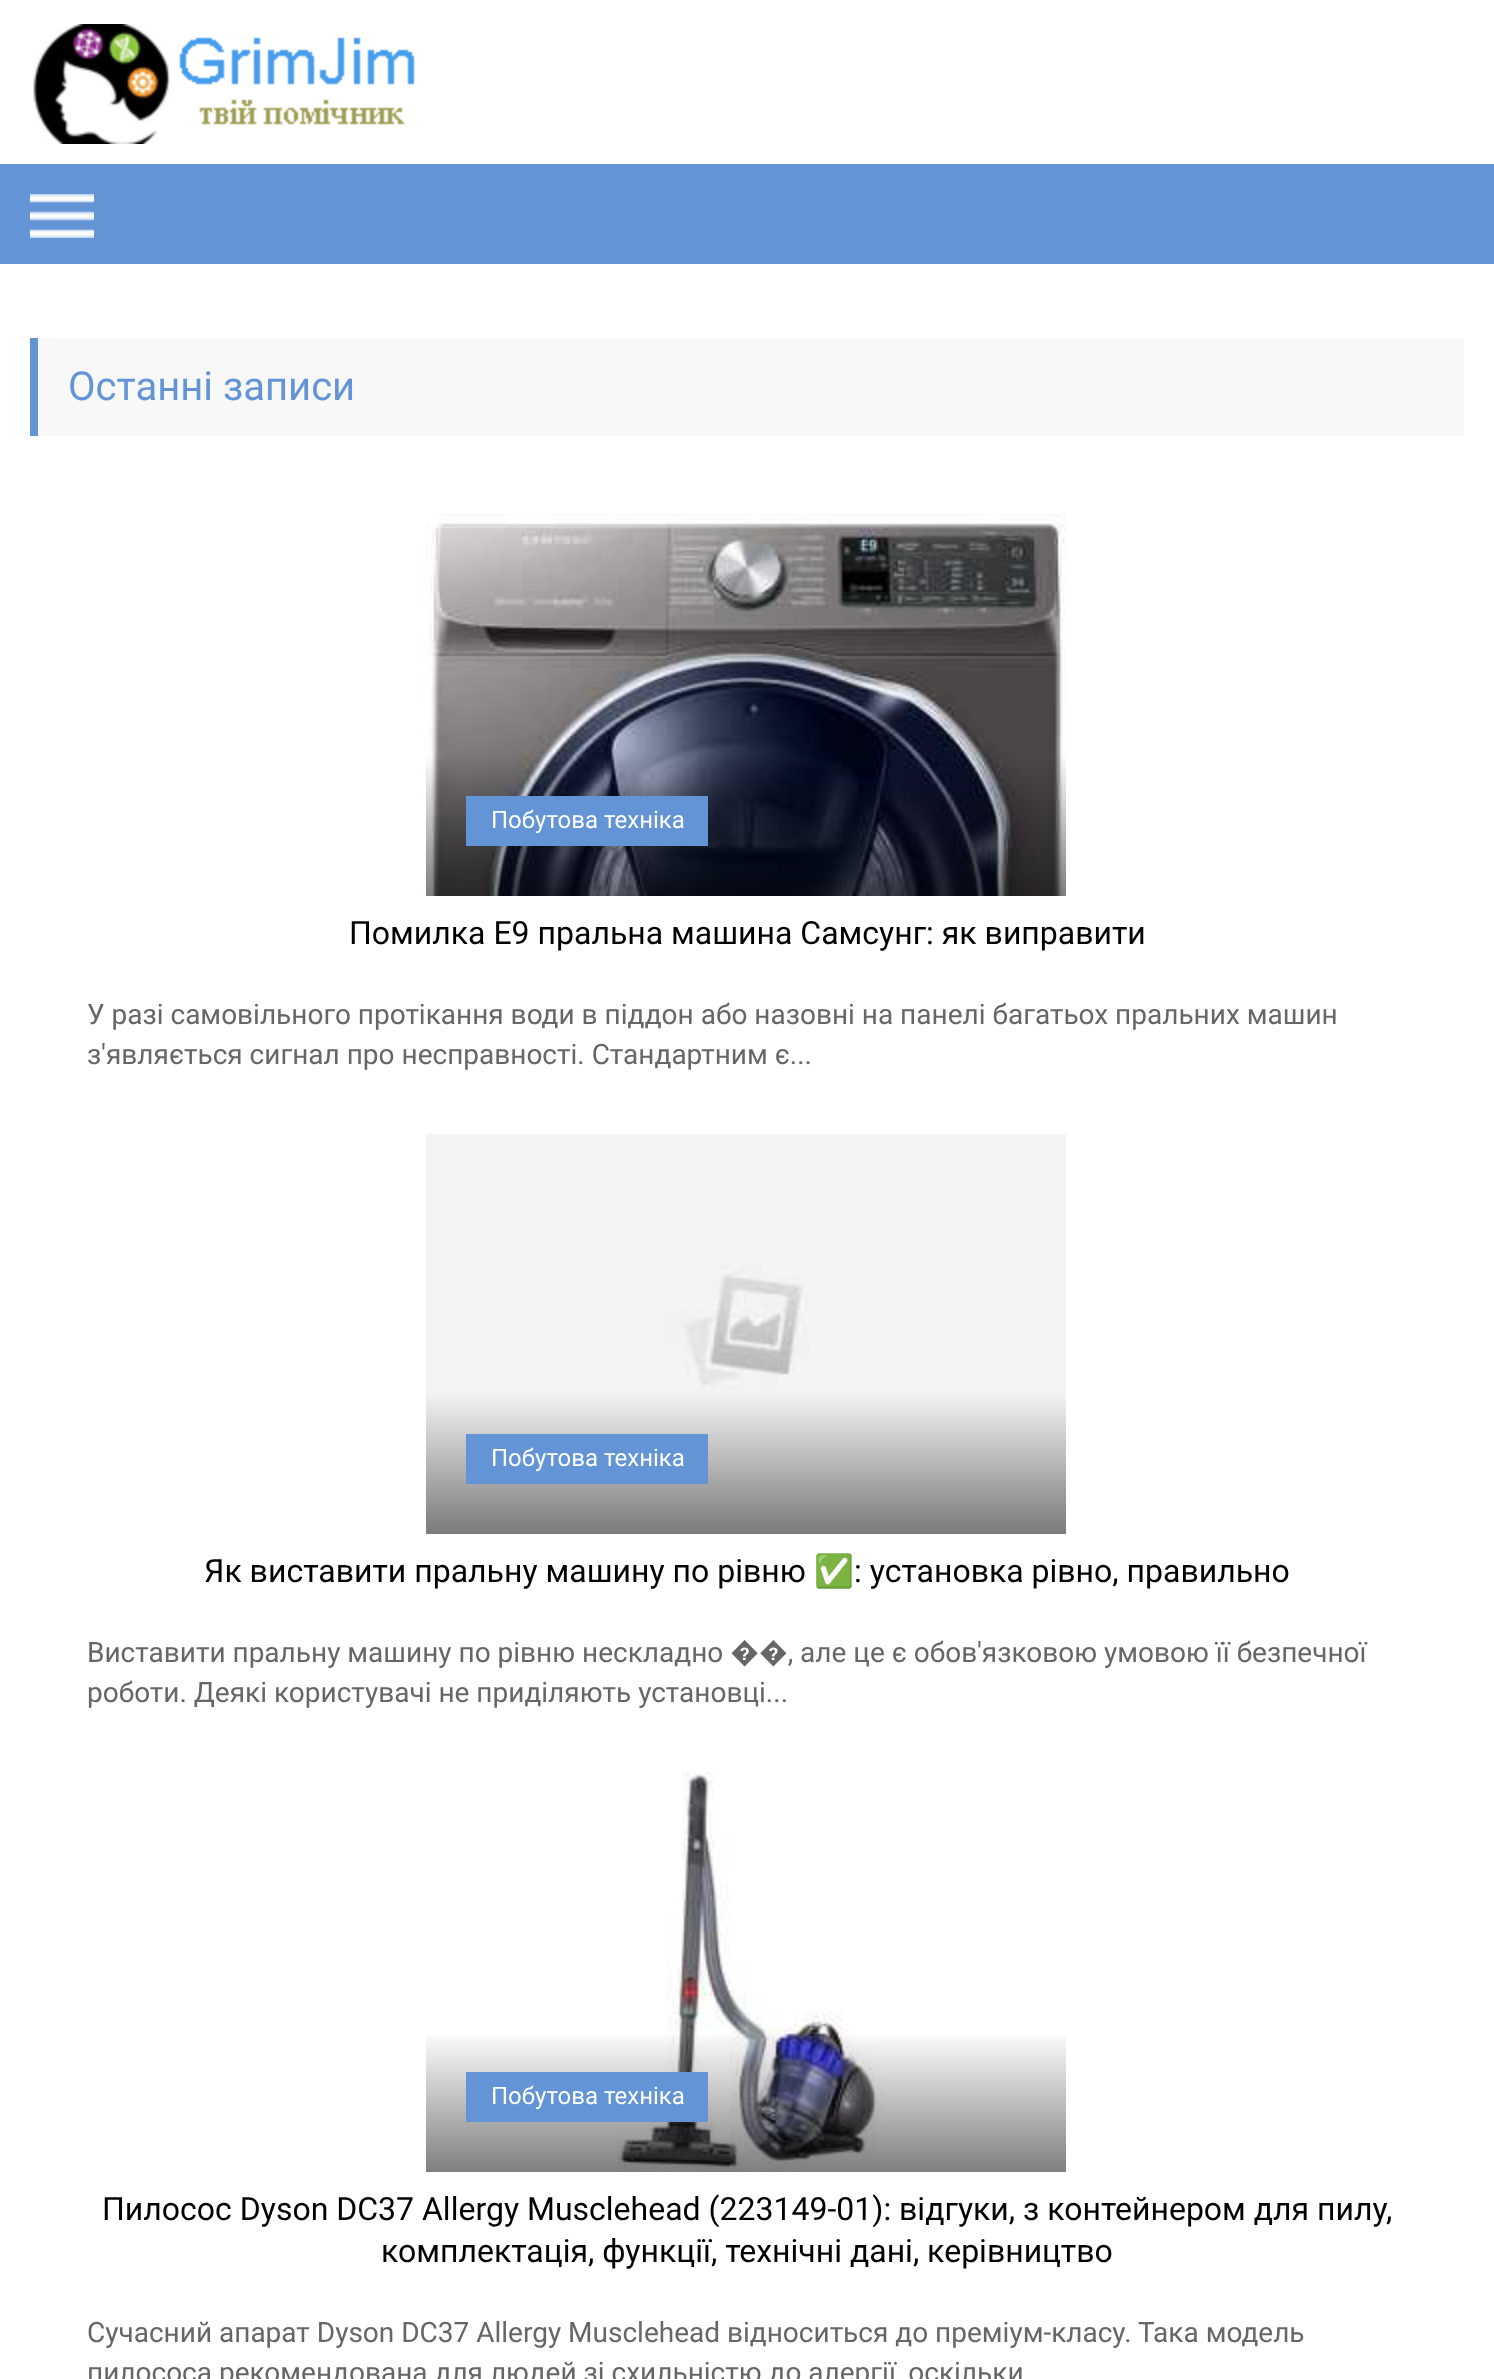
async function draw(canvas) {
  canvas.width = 1494;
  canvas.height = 2379;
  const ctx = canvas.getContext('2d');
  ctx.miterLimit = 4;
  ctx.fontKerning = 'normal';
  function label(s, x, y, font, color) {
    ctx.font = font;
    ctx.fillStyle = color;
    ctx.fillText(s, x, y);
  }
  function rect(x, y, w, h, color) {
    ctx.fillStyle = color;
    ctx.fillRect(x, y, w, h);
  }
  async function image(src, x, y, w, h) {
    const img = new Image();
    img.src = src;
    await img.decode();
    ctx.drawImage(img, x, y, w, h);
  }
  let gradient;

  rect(0, 0, 1494, 2379, '#fff');
  await image('assets/img1.png', 33, 24, 382, 120);
  rect(0, 164, 1494, 100, '#6294d6');
  await image('assets/img2.png', 30, 194, 64, 44);
  rect(38, 338, 1426, 98, '#f8f8f8');
  rect(30, 338, 8, 98, '#6294d6');
  label('Останні записи', 68, 400, '40px Roboto', '#6294d6');
  await image('assets/img3.png', 426, 512, 640, 384);
  rect(466, 796, 242, 50, '#6294d6');
  label('Побутова техніка', 491, 828, '24px Roboto', '#fff');
  label('Помилка E9 пральна машина Cамсунг: як виправити', 349, 944, '32px Roboto', '#010101');
  label('У разі самовільного протікання води в піддон або назовні на панелі багатьох пральних машин', 87, 1024, '28px Roboto', '#666');
  label('з\'являється сигнал про несправності. Стандартним є...', 87, 1064, '28px Roboto', '#666');
  await image('assets/img4.png', 426, 1134, 640, 258);
  gradient = ctx.createLinearGradient(746, 1392, 746, 1534);
  gradient.addColorStop(0, '#f4f4f4');
  gradient.addColorStop(1, '#7a7a7a');
  ctx.fillStyle = gradient;
  ctx.fillRect(426, 1392, 640, 142);
  rect(466, 1434, 242, 50, '#6294d6');
  label('Побутова техніка', 491, 1466, '24px Roboto', '#fff');
  label('Як виставити пральну машину по рівню', 204, 1582, '32px Roboto', '#010101');
  label('✅', 814, 1582, '32px Noto Color Emoji', '#010101');
  label(': установка рівно, правильно', 854, 1582, '32px Roboto', '#010101');
  label('Виставити пральну машину по рівню нескладно ��, але це є обов\'язковою умовою її безпечної', 87, 1662, '28px Roboto', '#666');
  label('роботи. Деякі користувачі не приділяють установці...', 87, 1702, '28px Roboto', '#666');
  await image('assets/img5.png', 617, 1772, 267, 400);
  gradient = ctx.createLinearGradient(746, 2030, 746, 2172);
  gradient.addColorStop(0, '#00000000');
  gradient.addColorStop(1, '#00000080');
  ctx.fillStyle = gradient;
  ctx.fillRect(426, 2036, 640, 136);
  rect(466, 2072, 242, 50, '#6294d6');
  label('Побутова техніка', 491, 2104, '24px Roboto', '#fff');
  label('Пилосос Dyson DC37 Allergy Musclehead (223149-01): відгуки, з контейнером для пилу,', 102, 2220, '32px Roboto', '#010101');
  label('комплектація, функції, технічні дані, керівництво', 381, 2262, '32px Roboto', '#010101');
  label('Сучасний апарат Dyson DC37 Allergy Musclehead відноситься до преміум-класу. Така модель', 87, 2342, '28px Roboto', '#666');
  label('пилососа рекомендована для людей зі схильністю до алергії, оскільки', 87, 2382, '28px Roboto', '#666');
}

draw(document.querySelector('canvas'));
